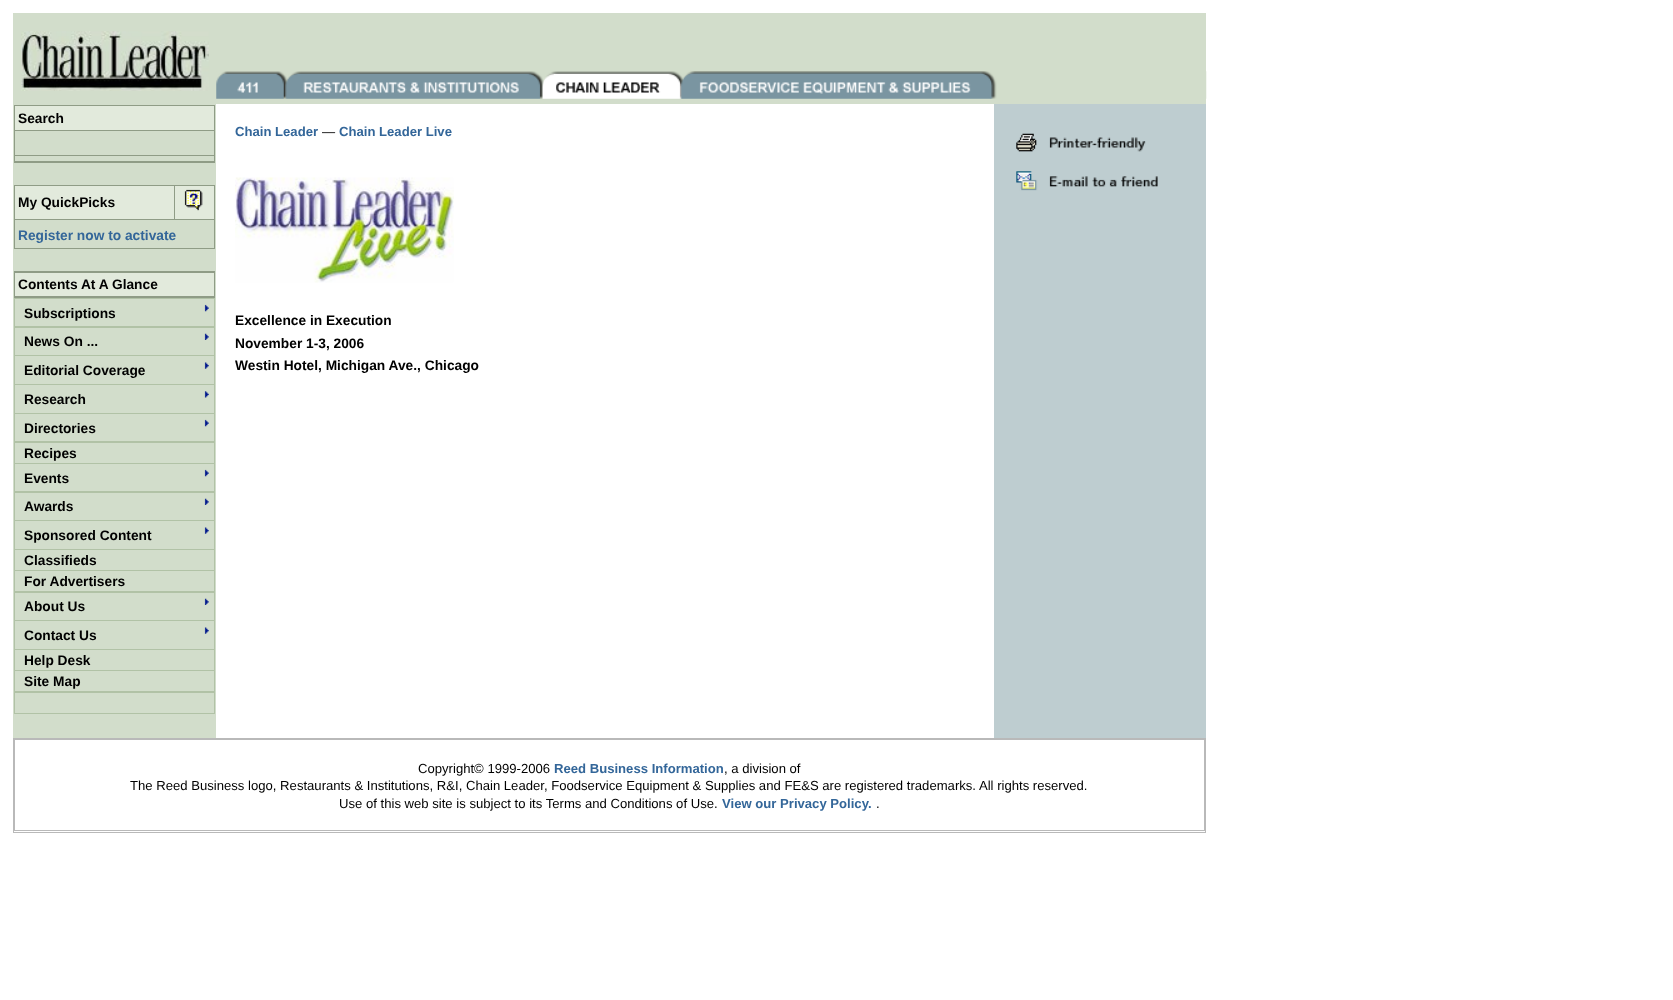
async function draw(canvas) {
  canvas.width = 1673;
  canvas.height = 1000;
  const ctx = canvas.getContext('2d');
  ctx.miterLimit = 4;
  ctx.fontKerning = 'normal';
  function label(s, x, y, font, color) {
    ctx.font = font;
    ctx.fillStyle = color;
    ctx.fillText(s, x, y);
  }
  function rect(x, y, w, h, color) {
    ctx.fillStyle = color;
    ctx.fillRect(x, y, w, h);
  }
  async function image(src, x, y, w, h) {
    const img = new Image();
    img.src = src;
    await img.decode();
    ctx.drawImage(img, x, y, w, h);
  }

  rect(0, 0, 1673, 1000, '#fff');
  rect(13, 13, 1193, 91, '#d2ddcb');
  await image('assets/img1.png', 21, 31, 188, 60);
  await image('assets/img2.png', 216, 71, 991, 28);
  rect(13, 104, 203, 634, '#d2ddcb');
  rect(14, 105, 201, 58, '#8f9c86');
  rect(15, 106, 199, 24, '#e2eadc');
  label('Search', 18, 123, 'bold 13.75px Liberation Sans', '#000');
  rect(15, 131, 199, 24, '#d2ddcb');
  rect(15, 156, 199, 5, '#d2ddcb');
  rect(14, 185, 201, 64, '#8f9c86');
  rect(15, 186, 159, 33, '#e2eadc');
  label('My QuickPicks', 18, 207, 'bold 13.75px Liberation Sans', '#000');
  rect(175, 186, 39, 33, '#e2eadc');
  await image('assets/img3.png', 184, 189, 19, 22);
  rect(15, 220, 199, 28, '#d2ddcb');
  label('Register now to activate', 18, 240, 'bold 13.75px Liberation Sans', '#369');
  rect(14, 271, 201, 27, '#8f9c86');
  rect(15, 273, 199, 23, '#e2eadc');
  label('Contents At A Glance', 18, 289, 'bold 13.75px Liberation Sans', '#000');
  rect(14, 298, 201, 416, '#b1c2a6');
  rect(15, 299, 199, 27, '#d2ddcb');
  label('Subscriptions', 24, 318, 'bold 13.75px Liberation Sans', '#000');
  await image('assets/img4.png', 204, 304, 5, 8);
  rect(15, 328, 199, 27, '#d2ddcb');
  label('News On ...', 24, 346, 'bold 13.75px Liberation Sans', '#000');
  await image('assets/img5.png', 204, 333, 5, 7);
  rect(15, 356, 199, 28, '#d2ddcb');
  label('Editorial Coverage', 24, 375, 'bold 13.75px Liberation Sans', '#000');
  await image('assets/img6.png', 204, 362, 5, 7);
  rect(15, 385, 199, 28, '#d2ddcb');
  label('Research', 24, 404, 'bold 13.75px Liberation Sans', '#000');
  await image('assets/img7.png', 204, 391, 5, 7);
  rect(15, 414, 199, 27, '#d2ddcb');
  label('Directories', 24, 433, 'bold 13.75px Liberation Sans', '#000');
  await image('assets/img4.png', 204, 419, 5, 8);
  rect(15, 443, 199, 20, '#d2ddcb');
  label('Recipes', 24, 458, 'bold 13.75px Liberation Sans', '#000');
  rect(15, 464, 199, 27, '#d2ddcb');
  label('Events', 24, 483, 'bold 13.75px Liberation Sans', '#000');
  await image('assets/img4.png', 204, 469, 5, 8);
  rect(15, 493, 199, 27, '#d2ddcb');
  label('Awards', 24, 511, 'bold 13.75px Liberation Sans', '#000');
  await image('assets/img5.png', 204, 498, 5, 7);
  rect(15, 521, 199, 28, '#d2ddcb');
  label('Sponsored Content', 24, 540, 'bold 13.75px Liberation Sans', '#000');
  await image('assets/img6.png', 204, 527, 5, 7);
  rect(15, 550, 199, 20, '#d2ddcb');
  label('Classifieds', 24, 565, 'bold 13.75px Liberation Sans', '#000');
  rect(15, 571, 199, 20, '#d2ddcb');
  label('For Advertisers', 24, 586, 'bold 13.75px Liberation Sans', '#000');
  rect(15, 593, 199, 27, '#d2ddcb');
  label('About Us', 24, 611, 'bold 13.75px Liberation Sans', '#000');
  await image('assets/img5.png', 204, 598, 5, 7);
  rect(15, 621, 199, 28, '#d2ddcb');
  label('Contact Us', 24, 640, 'bold 13.75px Liberation Sans', '#000');
  await image('assets/img6.png', 204, 627, 5, 7);
  rect(15, 650, 199, 20, '#d2ddcb');
  label('Help Desk', 24, 665, 'bold 13.75px Liberation Sans', '#000');
  rect(15, 671, 199, 20, '#d2ddcb');
  label('Site Map', 24, 686, 'bold 13.75px Liberation Sans', '#000');
  rect(15, 693, 199, 20, '#d2ddcb');
  label('Chain Leader', 235, 136, 'bold 13.12px Liberation Sans', '#369');
  label('—', 322, 136, '13.12px Liberation Sans', '#000');
  label('Chain Leader Live', 339, 136, 'bold 13.12px Liberation Sans', '#369');
  await image('assets/img8.png', 235, 177, 219, 106);
  label('Excellence in Execution', 235, 325, 'bold 13.75px Liberation Sans', '#000');
  label('November 1-3, 2006', 235, 348, 'bold 13.75px Liberation Sans', '#000');
  label('Westin Hotel, Michigan Ave., Chicago', 235, 370, 'bold 13.75px Liberation Sans', '#000');
  rect(994, 104, 212, 634, '#becdd0');
  await image('assets/img9.png', 1016, 133, 130, 19);
  await image('assets/img10.png', 1016, 171, 142, 20);
  ctx.strokeStyle = '#b9b9b9';
  ctx.strokeRect(13.5, 738.5, 1192, 94);
  ctx.strokeRect(14.5, 739.5, 1190, 91);
  label('Copyright© 1999-2006', 418, 773, '13.12px Liberation Sans', '#000');
  label('Reed Business Information', 554, 773, 'bold 13.12px Liberation Sans', '#369');
  label(', a division of', 724, 773, '13.12px Liberation Sans', '#000');
  label('The Reed Business logo, Restaurants & Institutions, R&I, Chain Leader, Foodservice Equipment & Supplies and FE&S are registered trademarks. All rights reserved.', 130, 790, '13.12px Liberation Sans', '#000');
  label('Use of this web site is subject to its Terms and Conditions of Use.', 339, 808, '13.12px Liberation Sans', '#000');
  label('View our Privacy Policy.', 722, 808, 'bold 13.12px Liberation Sans', '#369');
  label('.', 876, 808, '13.12px Liberation Sans', '#000');
}

draw(document.querySelector('canvas'));
